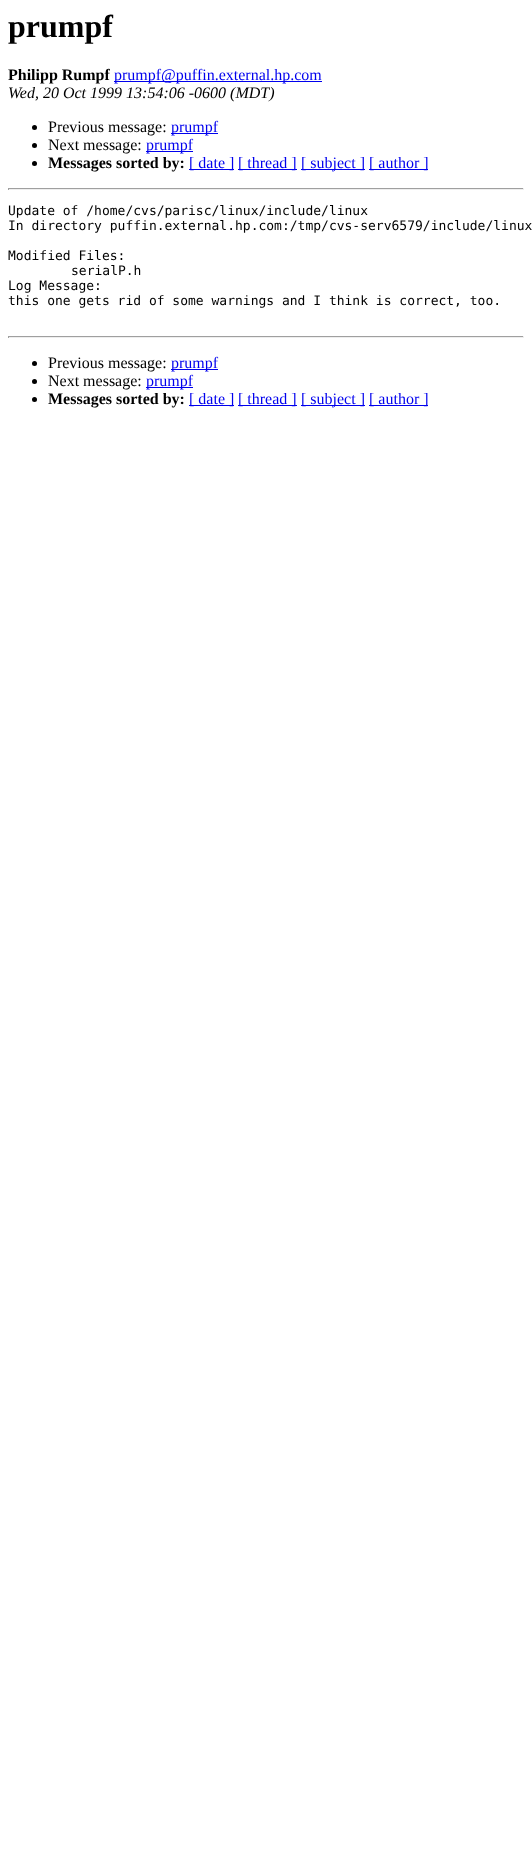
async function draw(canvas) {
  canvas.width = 532;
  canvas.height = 1863;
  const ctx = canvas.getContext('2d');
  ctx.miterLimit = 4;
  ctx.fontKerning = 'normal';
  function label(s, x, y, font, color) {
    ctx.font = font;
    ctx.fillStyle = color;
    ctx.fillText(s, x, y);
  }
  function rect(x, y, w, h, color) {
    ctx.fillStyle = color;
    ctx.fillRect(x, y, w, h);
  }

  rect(0, 0, 532, 1863, '#fff');
  label('prumpf', 8, 37, 'bold 32px Liberation Serif', '#000');
  label('Philipp Rumpf', 8, 80, 'bold 16px Liberation Serif', '#000');
  rect(114, 81, 208, 1, '#00e');
  label('prumpf@puffin.external.hp.com', 114, 80, '16px Liberation Serif', '#00e');
  label('Wed, 20 Oct 1999 13:54:06 -0600 (MDT)', 8, 98, 'italic 16px Liberation Serif', '#000');
  ctx.beginPath();
  ctx.arc(34.5, 127.5, 2.5, 0, 2 * Math.PI);
  ctx.fill();
  label('Previous message:', 48, 132, '16px Liberation Serif', '#000');
  rect(171, 133, 47, 1, '#00e');
  label('prumpf', 171, 132, '16px Liberation Serif', '#00e');
  ctx.fillStyle = '#000';
  ctx.beginPath();
  ctx.arc(34.5, 145.5, 2.5, 0, 2 * Math.PI);
  ctx.fill();
  label('Next message:', 48, 150, '16px Liberation Serif', '#000');
  rect(146, 151, 47, 1, '#00e');
  label('prumpf', 146, 150, '16px Liberation Serif', '#00e');
  ctx.fillStyle = '#000';
  ctx.beginPath();
  ctx.arc(34.5, 163.5, 2.5, 0, 2 * Math.PI);
  ctx.fill();
  label('Messages sorted by:', 48, 168, 'bold 16px Liberation Serif', '#000');
  rect(189, 169, 45, 1, '#00e');
  label('[ date ]', 189, 168, '16px Liberation Serif', '#00e');
  rect(238, 169, 59, 1, '#00e');
  label('[ thread ]', 238, 168, '16px Liberation Serif', '#00e');
  rect(301, 169, 64, 1, '#00e');
  label('[ subject ]', 301, 168, '16px Liberation Serif', '#00e');
  rect(369, 169, 59, 1, '#00e');
  label('[ author ]', 369, 168, '16px Liberation Serif', '#00e');
  rect(8, 188, 516, 1, '#9f9f9f');
  rect(523, 188, 1, 2, '#eee');
  rect(8, 189, 516, 1, '#eee');
  rect(8, 188, 1, 2, '#9f9f9f');
  label('Update of /home/cvs/parisc/linux/include/linux', 8, 215, '13px DejaVu Sans Mono', '#000');
  label('In directory puffin.external.hp.com:/tmp/cvs-serv6579/include/linux', 8, 230, '13px DejaVu Sans Mono', '#000');
  label('Modified Files:', 8, 260, '13px DejaVu Sans Mono', '#000');
  label('serialP.h', 71, 275, '13px DejaVu Sans Mono', '#000');
  label('Log Message:', 8, 290, '13px DejaVu Sans Mono', '#000');
  label('this one gets rid of some warnings and I think is correct, too.', 8, 305, '13px DejaVu Sans Mono', '#000');
  rect(8, 336, 516, 1, '#9f9f9f');
  rect(523, 336, 1, 2, '#eee');
  rect(8, 337, 516, 1, '#eee');
  rect(8, 336, 1, 2, '#9f9f9f');
  ctx.fillStyle = '#000';
  ctx.beginPath();
  ctx.arc(34.5, 363.5, 2.5, 0, 2 * Math.PI);
  ctx.fill();
  label('Previous message:', 48, 368, '16px Liberation Serif', '#000');
  rect(171, 369, 47, 1, '#00e');
  label('prumpf', 171, 368, '16px Liberation Serif', '#00e');
  ctx.fillStyle = '#000';
  ctx.beginPath();
  ctx.arc(34.5, 381.5, 2.5, 0, 2 * Math.PI);
  ctx.fill();
  label('Next message:', 48, 386, '16px Liberation Serif', '#000');
  rect(146, 387, 47, 1, '#00e');
  label('prumpf', 146, 386, '16px Liberation Serif', '#00e');
  ctx.fillStyle = '#000';
  ctx.beginPath();
  ctx.arc(34.5, 399.5, 2.5, 0, 2 * Math.PI);
  ctx.fill();
  label('Messages sorted by:', 48, 404, 'bold 16px Liberation Serif', '#000');
  rect(189, 405, 45, 1, '#00e');
  label('[ date ]', 189, 404, '16px Liberation Serif', '#00e');
  rect(238, 405, 59, 1, '#00e');
  label('[ thread ]', 238, 404, '16px Liberation Serif', '#00e');
  rect(301, 405, 64, 1, '#00e');
  label('[ subject ]', 301, 404, '16px Liberation Serif', '#00e');
  rect(369, 405, 59, 1, '#00e');
  label('[ author ]', 369, 404, '16px Liberation Serif', '#00e');
}

draw(document.querySelector('canvas'));
